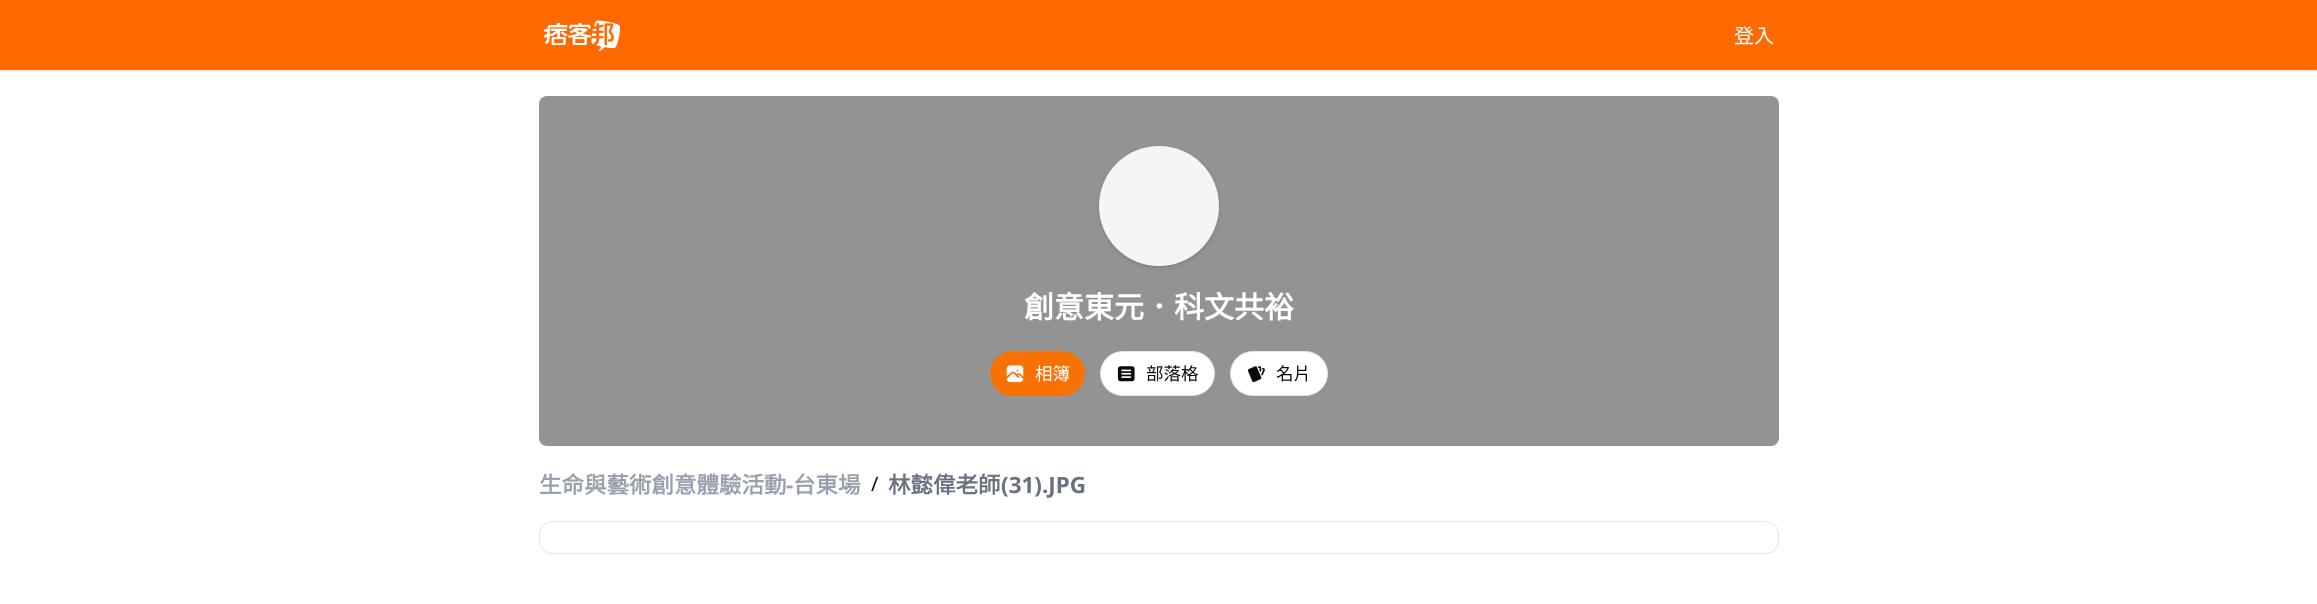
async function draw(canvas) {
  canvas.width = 2317;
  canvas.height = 604;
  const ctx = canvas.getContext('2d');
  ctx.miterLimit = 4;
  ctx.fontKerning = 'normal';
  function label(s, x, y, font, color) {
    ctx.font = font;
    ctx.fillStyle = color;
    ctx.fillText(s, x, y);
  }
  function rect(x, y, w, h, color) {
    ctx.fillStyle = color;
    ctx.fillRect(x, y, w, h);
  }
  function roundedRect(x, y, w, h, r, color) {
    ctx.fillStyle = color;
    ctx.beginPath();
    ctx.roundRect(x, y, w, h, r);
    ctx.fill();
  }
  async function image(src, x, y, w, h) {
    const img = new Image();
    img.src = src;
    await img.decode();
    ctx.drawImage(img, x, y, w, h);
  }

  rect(0, 0, 2317, 604, '#fff');
  ctx.fillStyle = '#0000001a';
  ctx.filter = 'blur(1px)';
  ctx.beginPath();
  ctx.rect(1, 3, 2315, 67);
  ctx.fill();
  ctx.filter = 'none';
  ctx.filter = 'blur(2px)';
  ctx.beginPath();
  ctx.rect(0, 1, 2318, 70);
  ctx.fill();
  ctx.filter = 'none';
  rect(0, 0, 2317, 70, '#ff6900');
  await image('assets/img1.png', 544, 20, 76, 31);
  label('登入', 1734, 43, '20px Noto Sans CJK TC', '#fff');
  roundedRect(539, 96, 1240, 350, 8, '#f5f5f5');
  roundedRect(539, 96, 1240, 350, 8, '#00000066');
  ctx.fillStyle = '#0000001a';
  ctx.filter = 'blur(1px)';
  ctx.beginPath();
  ctx.roundRect(1100, 149, 118, 117, 58.5);
  ctx.fill();
  ctx.filter = 'none';
  ctx.filter = 'blur(2px)';
  ctx.beginPath();
  ctx.roundRect(1099, 148, 120, 120, 60);
  ctx.fill();
  ctx.filter = 'none';
  ctx.fillStyle = '#f5f5f5';
  ctx.beginPath();
  ctx.arc(1159, 206, 60, 0, 2 * Math.PI);
  ctx.fill();
  label('創意東元．科文共裕', 1024, 318, 'bold 30px Noto Sans CJK TC', '#fff');
  roundedRect(990, 351, 95, 45, 22.5, '#f87103');
  await image('assets/img2.png', 1006, 365, 18, 18);
  label('相簿', 1035, 380, '17.5px Noto Sans CJK TC', '#fff');
  ctx.beginPath();
  ctx.roundRect(1100.5, 351.5, 114, 44, 22);
  ctx.fill();
  ctx.strokeStyle = '#e5e5e5';
  ctx.stroke();
  await image('assets/img3.png', 1117, 366, 18, 16);
  label('部落格', 1146, 380, '17.5px Noto Sans CJK TC', '#0a0a0a');
  ctx.fillStyle = '#fff';
  ctx.beginPath();
  ctx.roundRect(1230.5, 351.5, 97, 44, 22);
  ctx.fill();
  ctx.stroke();
  await image('assets/img4.png', 1247, 366, 18, 17);
  label('名片', 1276, 380, '17.5px Noto Sans CJK TC', '#0a0a0a');
  label('生命與藝術創意體驗活動', 539, 493, 'bold 22.5px Noto Sans CJK TC', '#99a1af');
  label('-', 786, 493, 'bold 22.5px Noto Sans', '#99a1af');
  label('台東場', 793, 493, 'bold 22.5px Noto Sans CJK TC', '#99a1af');
  label('/', 871, 491, '20px Noto Sans', '#0a0a0a');
  label('林懿偉老師', 888, 493, 'bold 22.5px Noto Sans CJK TC', '#6a7282');
  label('(31).JPG', 1001, 493, 'bold 22.5px Noto Sans', '#6a7282');
  ctx.beginPath();
  ctx.roundRect(539.5, 521.5, 1239, 32, 12.5);
  ctx.stroke();
}

draw(document.querySelector('canvas'));
